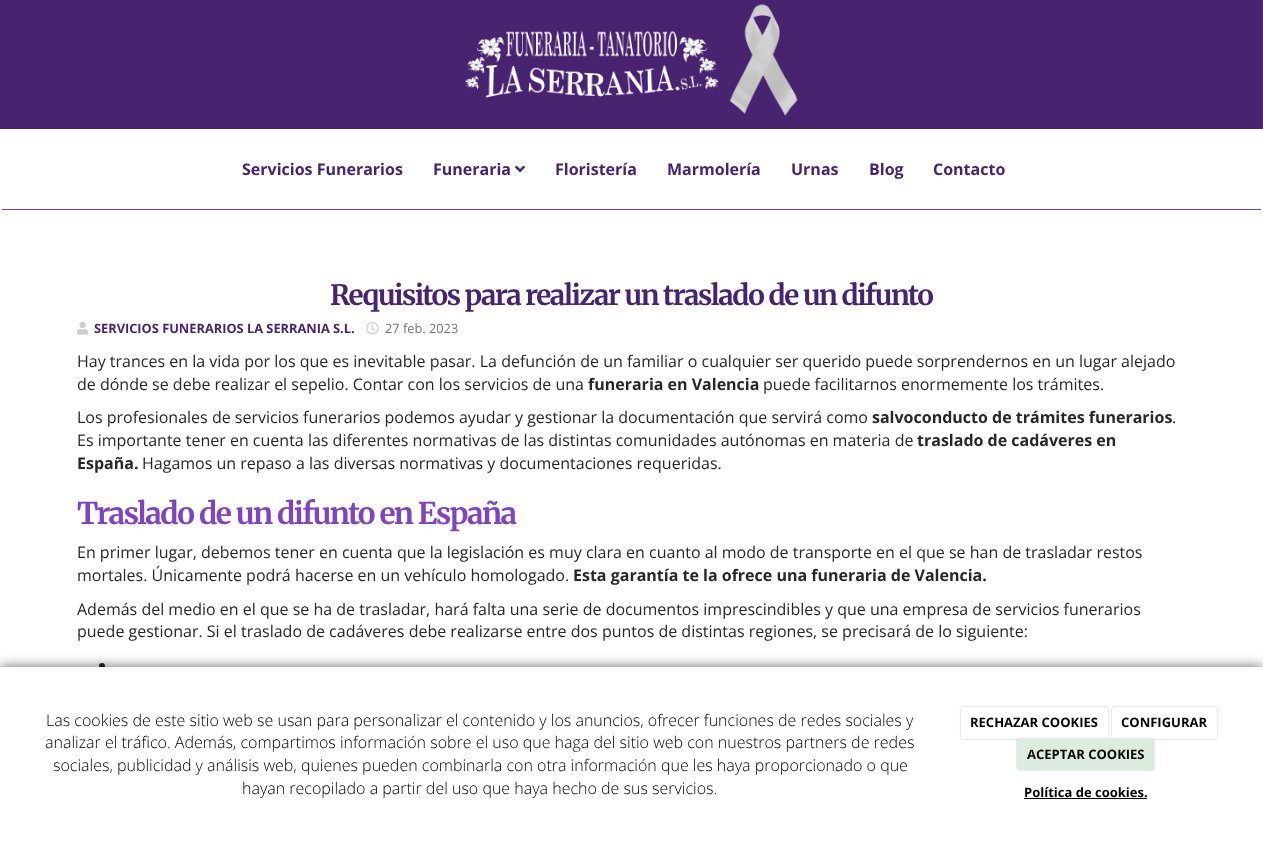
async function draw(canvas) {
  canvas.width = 1263;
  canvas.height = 842;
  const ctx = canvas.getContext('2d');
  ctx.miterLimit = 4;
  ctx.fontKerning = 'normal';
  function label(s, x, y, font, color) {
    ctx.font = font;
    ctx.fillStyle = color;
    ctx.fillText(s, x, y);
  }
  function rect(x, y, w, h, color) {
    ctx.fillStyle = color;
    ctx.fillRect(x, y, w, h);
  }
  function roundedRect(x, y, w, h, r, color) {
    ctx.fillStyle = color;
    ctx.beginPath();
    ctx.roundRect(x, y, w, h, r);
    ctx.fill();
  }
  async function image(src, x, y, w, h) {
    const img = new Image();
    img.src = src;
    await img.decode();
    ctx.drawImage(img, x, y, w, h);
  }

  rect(0, 0, 1263, 842, '#fff');
  rect(0, 0, 1263, 129, '#482370');
  await image('assets/img1.png', 464, 4, 334, 112);
  rect(2, 209, 1259, 1, '#7a3bbe');
  label('Servicios Funerarios', 242, 175, 'bold 16px Open Sans', '#482370');
  label('Funeraria', 433, 175, 'bold 16px Open Sans', '#482370');
  await image('assets/img2.png', 515, 165, 10, 8);
  label('Floristería', 555, 175, 'bold 16px Open Sans', '#482370');
  label('Marmolería', 667, 175, 'bold 16px Open Sans', '#482370');
  label('Urnas', 791, 175, 'bold 16px Open Sans', '#482370');
  label('Blog', 869, 175, 'bold 16px Open Sans', '#482370');
  label('Contacto', 933, 175, 'bold 16px Open Sans', '#482370');
  ctx.letterSpacing = '-1.4px';
  label('Requisitos para realizar un traslado de un difunto', 330, 305, 'bold 28px Merriweather', '#482370');
  await image('assets/img3.png', 77, 321, 12, 14);
  ctx.letterSpacing = '0px';
  label('SERVICIOS FUNERARIOS LA SERRANIA S.L.', 94, 333, 'bold 12.8px Open Sans', '#482370');
  await image('assets/img4.png', 366, 322, 13, 13);
  label('27 feb. 2023', 385, 333, '12.8px Open Sans', '#777');
  label('Hay trances en la vida por los que es inevitable pasar. La defunción de un familiar o cualquier ser querido puede sorprendernos en un lugar alejado', 77, 367, '16px Open Sans', '#272727');
  label('de dónde se debe realizar el sepelio. Contar con los servicios de una', 77, 390, '16px Open Sans', '#272727');
  label('funeraria en Valencia', 588, 390, 'bold 16px Open Sans', '#272727');
  label('puede facilitarnos enormemente los trámites.', 763, 390, '16px Open Sans', '#272727');
  label('Los profesionales de servicios funerarios podemos ayudar y gestionar la documentación que servirá como', 77, 423, '16px Open Sans', '#272727');
  label('salvoconducto de trámites funerarios', 872, 423, 'bold 16px Open Sans', '#272727');
  label('.', 1172, 423, '16px Open Sans', '#272727');
  label('Es importante tener en cuenta las diferentes normativas de las distintas comunidades autónomas en materia de', 77, 446, '16px Open Sans', '#272727');
  label('traslado de cadáveres en', 917, 446, 'bold 16px Open Sans', '#272727');
  label('España.', 77, 469, 'bold 16px Open Sans', '#272727');
  label('Hagamos un repaso a las diversas normativas y documentaciones requeridas.', 142, 469, '16px Open Sans', '#272727');
  ctx.letterSpacing = '-1.5px';
  label('Traslado de un difunto en España', 77, 524, 'bold 30px "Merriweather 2"', '#8043c1');
  ctx.letterSpacing = '0px';
  label('En primer lugar, debemos tener en cuenta que la legislación es muy clara en cuanto al modo de transporte en el que se han de trasladar restos', 77, 558, '16px Open Sans', '#272727');
  label('mortales. Únicamente podrá hacerse en un vehículo homologado.', 77, 581, '16px Open Sans', '#272727');
  label('Esta garantía te la ofrece una funeraria de Valencia.', 573, 581, 'bold 16px Open Sans', '#272727');
  label('Además del medio en el que se ha de trasladar, hará falta una serie de documentos imprescindibles y que una empresa de servicios funerarios', 77, 615, '16px Open Sans', '#272727');
  label('puede gestionar. Si el traslado de cadáveres debe realizarse entre dos puntos de distintas regiones, se precisará de lo siguiente:', 77, 637, '16px Open Sans', '#272727');
  ctx.beginPath();
  ctx.arc(102, 666, 3, 0, 2 * Math.PI);
  ctx.fill();
  ctx.fillStyle = '#00000099';
  ctx.filter = 'blur(6.5px)';
  ctx.beginPath();
  ctx.rect(0, 667, 1263, 175);
  ctx.fill();
  ctx.filter = 'none';
  rect(0, 667, 1263, 175, '#fff');
  label('Las cookies de este sitio web se usan para personalizar el contenido y los anuncios, ofrecer funciones de redes sociales y', 46, 726, '300 16px Open Sans', '#000');
  label('analizar el tráfico. Además, compartimos información sobre el uso que haga del sitio web con nuestros partners de redes', 45, 748, '300 16px Open Sans', '#000');
  label('sociales, publicidad y análisis web, quienes pueden combinarla con otra información que les haya proporcionado o que', 53, 771, '300 16px Open Sans', '#000');
  label('hayan recopilado a partir del uso que haya hecho de sus servicios.', 242, 794, '300 16px Open Sans', '#000');
  ctx.fillStyle = '#00000040';
  ctx.filter = 'blur(1px)';
  ctx.beginPath();
  ctx.roundRect(961, 707, 147, 32, 3);
  ctx.fill();
  ctx.filter = 'none';
  roundedRect(961, 707, 147, 32, 3, '#fff');
  label('RECHAZAR COOKIES', 970, 727, 'bold 13px Open Sans', '#000');
  ctx.fillStyle = '#00000040';
  ctx.filter = 'blur(1px)';
  ctx.beginPath();
  ctx.roundRect(1112, 707, 105, 32, 3);
  ctx.fill();
  ctx.filter = 'none';
  roundedRect(1112, 707, 105, 32, 3, '#fff');
  label('CONFIGURAR', 1121, 727, 'bold 13px Open Sans', '#000');
  ctx.fillStyle = '#00000040';
  ctx.filter = 'blur(1px)';
  ctx.beginPath();
  ctx.roundRect(1017, 739, 137, 31, 3);
  ctx.fill();
  ctx.filter = 'none';
  roundedRect(1017, 739, 137, 31, 3, '#dcecdf');
  label('ACEPTAR COOKIES', 1027, 759, 'bold 13px Open Sans', '#000');
  label('Política de cookies.', 1024, 797, 'bold 13px Open Sans', '#000');
  rect(1024, 798, 123, 1, '#000');
}

draw(document.querySelector('canvas'));
